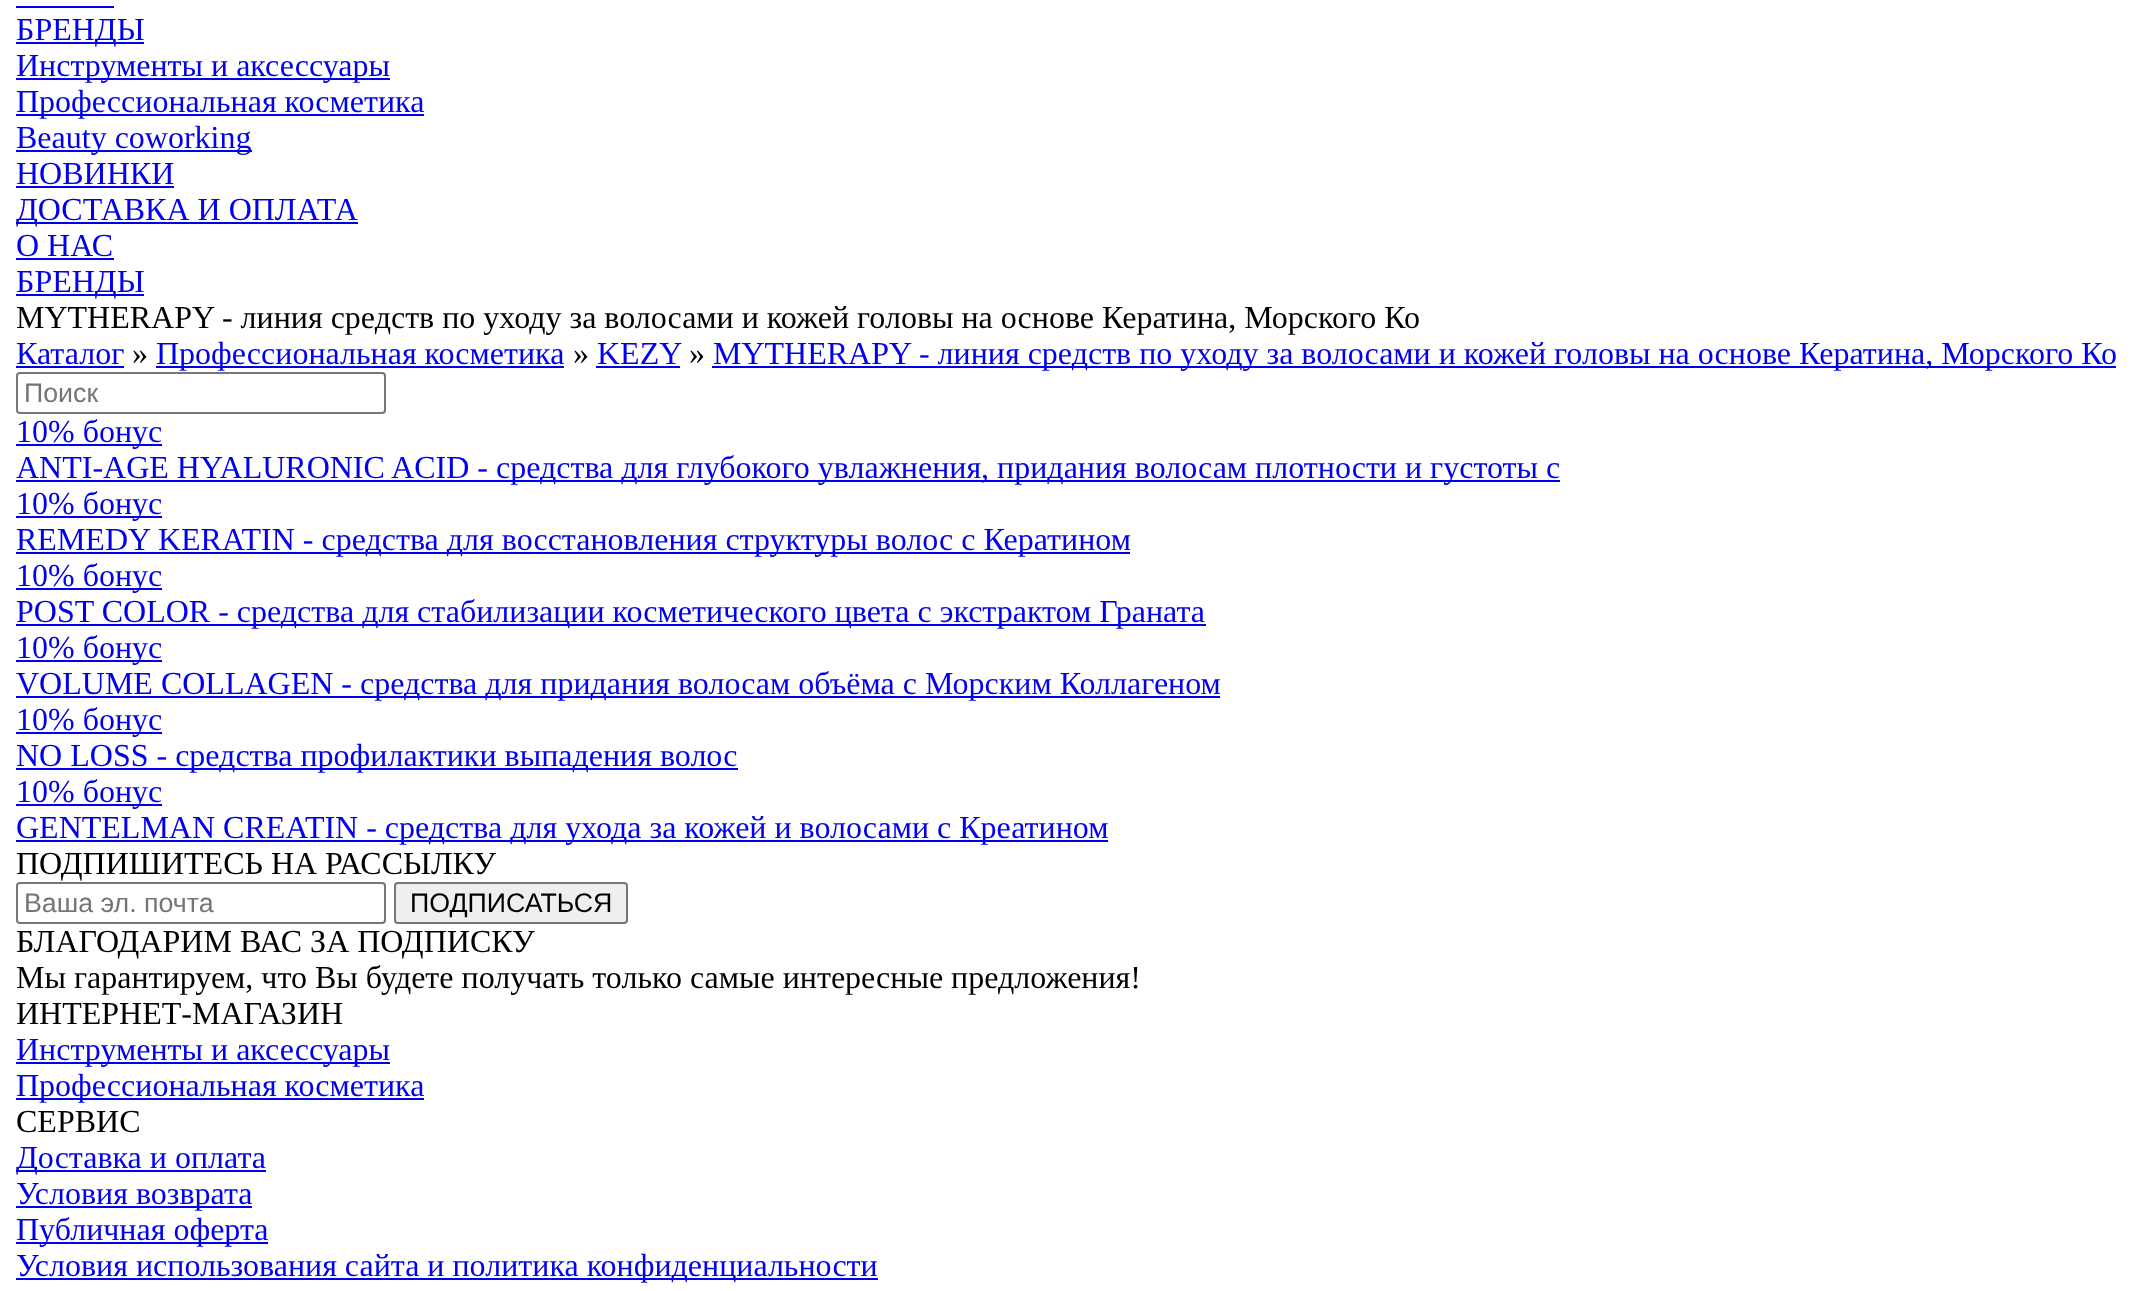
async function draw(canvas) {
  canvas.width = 2145;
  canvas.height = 1291;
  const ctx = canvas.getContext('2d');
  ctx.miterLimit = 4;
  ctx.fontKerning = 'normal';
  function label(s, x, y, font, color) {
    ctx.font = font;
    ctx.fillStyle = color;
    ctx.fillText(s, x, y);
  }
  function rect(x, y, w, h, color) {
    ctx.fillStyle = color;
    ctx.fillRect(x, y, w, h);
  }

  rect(0, 0, 2145, 1291, '#fff');
  rect(16, 6, 98, 2, '#00e');
  rect(16, 42, 128, 2, '#00e');
  label('БРЕНДЫ', 16, 40, '32px Liberation Serif', '#00e');
  rect(16, 78, 374, 2, '#00e');
  label('Инструменты и аксессуары', 16, 76, '32px Liberation Serif', '#00e');
  rect(16, 114, 408, 2, '#00e');
  label('Профессиональная косметика', 16, 112, '32px Liberation Serif', '#00e');
  rect(16, 150, 236, 2, '#00e');
  label('Beauty coworking', 16, 148, '32px Liberation Serif', '#00e');
  label('НОВИНКИ', 16, 184, '32px Liberation Serif', '#00e');
  rect(16, 186, 158, 2, '#00e');
  rect(16, 222, 342, 2, '#00e');
  label('ДОСТАВКА И ОПЛАТА', 16, 220, '32px Liberation Serif', '#00e');
  label('О НАС', 16, 256, '32px Liberation Serif', '#00e');
  rect(16, 258, 98, 2, '#00e');
  rect(16, 294, 128, 2, '#00e');
  label('БРЕНДЫ', 16, 292, '32px Liberation Serif', '#00e');
  label('MYTHERAPY - линия средств по уходу за волосами и кожей головы на основе Кератина, Морского Ко', 16, 328, '32px Liberation Serif', '#000');
  label('Каталог', 16, 364, '32px Liberation Serif', '#00e');
  rect(16, 366, 108, 2, '#00e');
  label('»', 132, 364, '32px Liberation Serif', '#000');
  rect(156, 366, 408, 2, '#00e');
  label('Профессиональная косметика', 156, 364, '32px Liberation Serif', '#00e');
  label('»', 573, 364, '32px Liberation Serif', '#000');
  label('KEZY', 597, 364, '32px Liberation Serif', '#00e');
  rect(596, 366, 84, 2, '#00e');
  label('»', 689, 364, '32px Liberation Serif', '#000');
  rect(712, 366, 1404, 2, '#00e');
  label('MYTHERAPY - линия средств по уходу за волосами и кожей головы на основе Кератина, Морского Ко', 713, 364, '32px Liberation Serif', '#00e');
  ctx.beginPath();
  ctx.roundRect(17, 373, 368, 40, 3);
  ctx.strokeStyle = '#767676';
  ctx.lineWidth = 2;
  ctx.stroke();
  label('Поиск', 24, 402, '26.75px Liberation Sans', '#757575');
  rect(16, 444, 146, 2, '#00e');
  label('10% бонус', 16, 442, '32px Liberation Serif', '#00e');
  rect(16, 480, 1544, 2, '#00e');
  label('ANTI-AGE HYALURONIC ACID - средства для глубокого увлажнения, придания волосам плотности и густоты с', 16, 478, '32px Liberation Serif', '#00e');
  rect(16, 516, 146, 2, '#00e');
  label('10% бонус', 16, 514, '32px Liberation Serif', '#00e');
  rect(16, 552, 1114, 2, '#00e');
  label('REMEDY KERATIN - средства для восстановления структуры волос с Кератином', 16, 550, '32px Liberation Serif', '#00e');
  rect(16, 588, 146, 2, '#00e');
  label('10% бонус', 16, 586, '32px Liberation Serif', '#00e');
  rect(16, 624, 1190, 2, '#00e');
  label('POST COLOR - cредства для стабилизации косметического цвета с экстрактом Граната', 16, 622, '32px Liberation Serif', '#00e');
  rect(16, 660, 146, 2, '#00e');
  label('10% бонус', 16, 658, '32px Liberation Serif', '#00e');
  rect(16, 696, 1204, 2, '#00e');
  label('VOLUME COLLAGEN - cредства для придания волосам объёма с Морским Коллагеном', 16, 694, '32px Liberation Serif', '#00e');
  rect(16, 732, 146, 2, '#00e');
  label('10% бонус', 16, 730, '32px Liberation Serif', '#00e');
  rect(16, 768, 722, 2, '#00e');
  label('NO LOSS - средства профилактики выпадения волос', 16, 766, '32px Liberation Serif', '#00e');
  rect(16, 804, 146, 2, '#00e');
  label('10% бонус', 16, 802, '32px Liberation Serif', '#00e');
  rect(16, 840, 1092, 2, '#00e');
  label('GENTELMAN CREATIN - средства для ухода за кожей и волосами с Креатином', 16, 838, '32px Liberation Serif', '#00e');
  label('ПОДПИШИТЕСЬ НА РАССЫЛКУ', 16, 874, '32px Liberation Serif', '#000');
  ctx.beginPath();
  ctx.roundRect(17, 883, 368, 40, 3);
  ctx.stroke();
  label('Ваша эл. почта', 24, 912, '26.75px Liberation Sans', '#757575');
  ctx.fillStyle = '#efefef';
  ctx.beginPath();
  ctx.roundRect(395, 883, 232, 40, 3);
  ctx.fill();
  ctx.stroke();
  label('ПОДПИСАТЬСЯ', 410, 912, '26.75px Liberation Sans', '#000');
  label('БЛАГОДАРИМ ВАС ЗА ПОДПИСКУ', 16, 952, '32px Liberation Serif', '#000');
  label('Мы гарантируем, что Вы будете получать только самые интересные предложения!', 16, 988, '32px Liberation Serif', '#000');
  label('ИНТЕРНЕТ-МАГАЗИН', 16, 1024, '32px Liberation Serif', '#000');
  rect(16, 1062, 374, 2, '#00e');
  label('Инструменты и аксессуары', 16, 1060, '32px Liberation Serif', '#00e');
  rect(16, 1098, 408, 2, '#00e');
  label('Профессиональная косметика', 16, 1096, '32px Liberation Serif', '#00e');
  label('СЕРВИС', 16, 1132, '32px Liberation Serif', '#000');
  rect(16, 1170, 250, 2, '#00e');
  label('Доставка и оплата', 16, 1168, '32px Liberation Serif', '#00e');
  rect(16, 1206, 236, 2, '#00e');
  label('Условия возврата', 16, 1204, '32px Liberation Serif', '#00e');
  rect(16, 1242, 252, 2, '#00e');
  label('Публичная оферта', 16, 1240, '32px Liberation Serif', '#00e');
  rect(16, 1278, 862, 2, '#00e');
  label('Условия использования сайта и политика конфиденциальности', 16, 1276, '32px Liberation Serif', '#00e');
}

draw(document.querySelector('canvas'));
